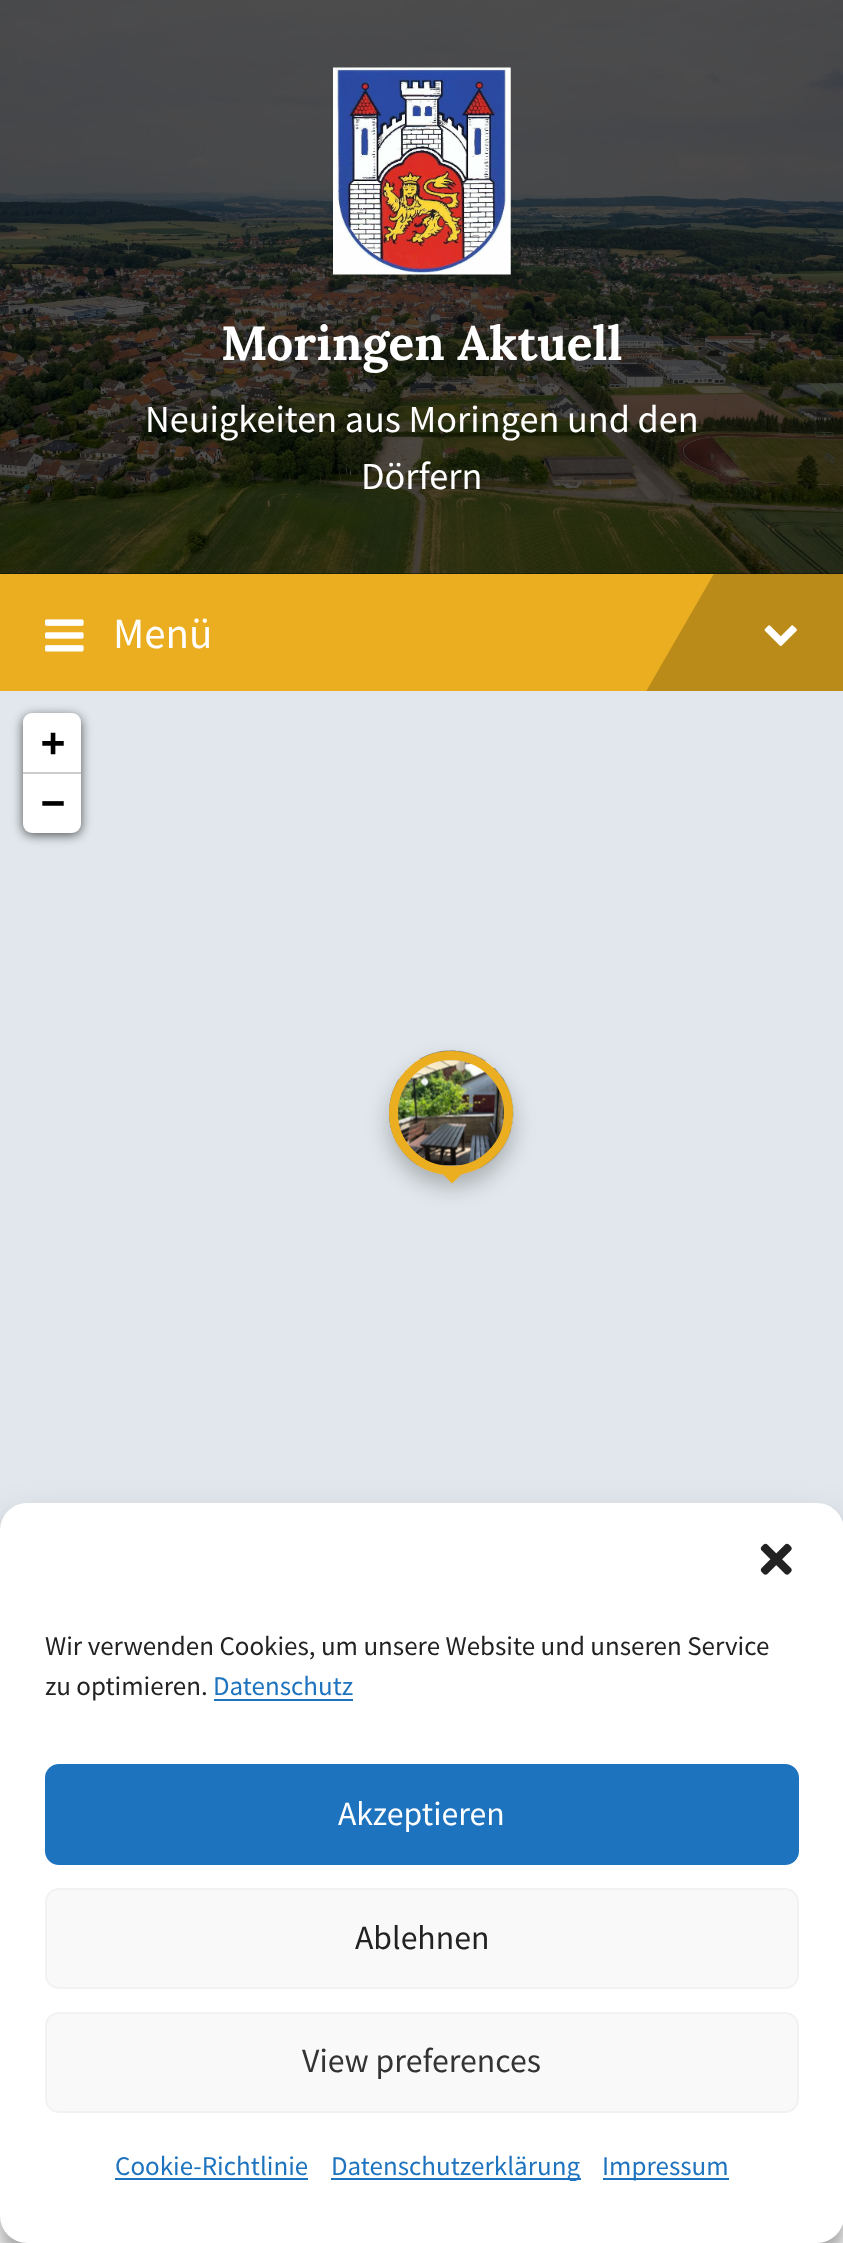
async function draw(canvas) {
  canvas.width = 843;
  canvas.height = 2243;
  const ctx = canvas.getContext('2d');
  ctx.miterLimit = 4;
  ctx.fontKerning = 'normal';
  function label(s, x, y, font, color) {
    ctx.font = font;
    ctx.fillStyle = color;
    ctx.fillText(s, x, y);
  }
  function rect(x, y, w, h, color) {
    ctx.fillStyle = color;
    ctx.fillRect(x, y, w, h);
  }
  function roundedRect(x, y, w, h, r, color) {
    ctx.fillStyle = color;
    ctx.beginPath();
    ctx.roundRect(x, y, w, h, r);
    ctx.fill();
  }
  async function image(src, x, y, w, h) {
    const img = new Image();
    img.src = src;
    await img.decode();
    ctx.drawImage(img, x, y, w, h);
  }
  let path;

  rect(0, 0, 843, 2243, '#fff');
  rect(0, 573, 843, 1, '#090b0c');
  await image('assets/img1.png', 0, 0, 843, 574);
  await image('assets/img2.png', 333, 67, 178, 208);
  label('Moringen Aktuell', 221, 360, 'bold 47.75px Lora', '#fff');
  label('Neuigkeiten aus Moringen und den', 145, 432, '38.25px Source Sans Pro', '#fff');
  label('Dörfern', 361, 489, '38.25px Source Sans Pro', '#fff');
  rect(0, 574, 714, 117, '#eaae20');
  await image('assets/img3.png', 45, 619, 39, 33);
  label('Menü', 113, 648, '43px Source Sans Pro', '#fff');
  ctx.save();
  ctx.beginPath();
  ctx.rect(0, 574, 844, 117);
  ctx.clip();
  ctx.fillStyle = '#bb8b1a';
  path = new Path2D('M757 499L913 589L796 792L640 702Z');
  ctx.fill(path);
  ctx.restore();
  await image('assets/img4.png', 764, 625, 33, 21);
  rect(0, 691, 843, 839, '#e1e7ec');
  ctx.fillStyle = '#000000a6';
  ctx.filter = 'blur(5.5px)';
  ctx.beginPath();
  ctx.roundRect(23, 716, 58, 119, 9);
  ctx.fill();
  ctx.filter = 'none';
  ctx.fillStyle = '#fff';
  ctx.beginPath();
  ctx.roundRect(23, 713, 58, 61, [9, 9, 0, 0]);
  ctx.fill();
  rect(23, 772, 58, 2, '#ccc');
  label('+', 41, 756, 'bold 40px DejaVu Sans Mono', '#000');
  ctx.fillStyle = '#fff';
  ctx.beginPath();
  ctx.roundRect(23, 774, 58, 59, [0, 0, 9, 9]);
  ctx.fill();
  label('−', 41, 816, 'bold 40px DejaVu Sans Mono', '#000');
  ctx.fillStyle = '#00000040';
  ctx.filter = 'blur(11px)';
  ctx.beginPath();
  ctx.roundRect(389, 1062, 124, 124, 62);
  ctx.fill();
  ctx.filter = 'none';
  await image('assets/img5.png', 389, 1050, 125, 125);
  ctx.beginPath();
  ctx.arc(451, 1113, 57.5, 0, 2 * Math.PI);
  ctx.strokeStyle = '#eaae20';
  ctx.lineWidth = 9;
  ctx.stroke();
  ctx.fillStyle = '#eaae20';
  path = new Path2D('M439 1170H466L452 1183.5Z');
  ctx.fill(path);
  ctx.fillStyle = '#0000003b';
  ctx.filter = 'blur(7px)';
  ctx.beginPath();
  ctx.roundRect(0, 1517, 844, 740, 27);
  ctx.fill();
  ctx.filter = 'none';
  ctx.fillStyle = '#00000030';
  ctx.filter = 'blur(22.5px)';
  ctx.beginPath();
  ctx.roundRect(0, 1526, 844, 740, 27);
  ctx.fill();
  ctx.filter = 'none';
  roundedRect(0, 1503, 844, 740, 27, '#fff');
  await image('assets/img6.png', 760, 1543, 32, 32);
  label('Wir verwenden Cookies, um unsere Website und unseren Service', 45, 1655, '27px Source Sans Pro', '#222');
  label('zu optimieren.', 45, 1695, '27px Source Sans Pro', '#222');
  label('Datenschutz', 213, 1695, '27px Source Sans Pro', '#1e73be');
  rect(214, 1699, 139, 2, '#1e73be');
  ctx.beginPath();
  ctx.roundRect(46, 1765, 752, 99, 13);
  ctx.fill();
  ctx.strokeStyle = '#1e73be';
  ctx.lineWidth = 2;
  ctx.stroke();
  label('Akzeptieren', 338, 1825, '33.75px Source Sans Pro', '#fff');
  ctx.fillStyle = '#f9f9f9';
  ctx.beginPath();
  ctx.roundRect(46, 1889, 752, 99, 13);
  ctx.fill();
  ctx.strokeStyle = '#f2f2f2';
  ctx.stroke();
  label('Ablehnen', 355, 1949, '33.75px Source Sans Pro', '#222');
  ctx.fillStyle = '#f9f9f9';
  ctx.beginPath();
  ctx.roundRect(46, 2013, 752, 99, 13);
  ctx.fill();
  ctx.stroke();
  label('View preferences', 302, 2072, '33.75px Source Sans Pro', '#333');
  label('Cookie-Richtlinie', 115, 2175, '27px Source Sans Pro', '#1e73be');
  rect(115, 2178, 193, 2, '#1e73be');
  rect(331, 2178, 250, 2, '#1e73be');
  label('Datenschutzerklärung', 331, 2175, '27px Source Sans Pro', '#1e73be');
  rect(603, 2178, 126, 2, '#1e73be');
  label('Impressum', 602, 2175, '27px Source Sans Pro', '#1e73be');
}

draw(document.querySelector('canvas'));
